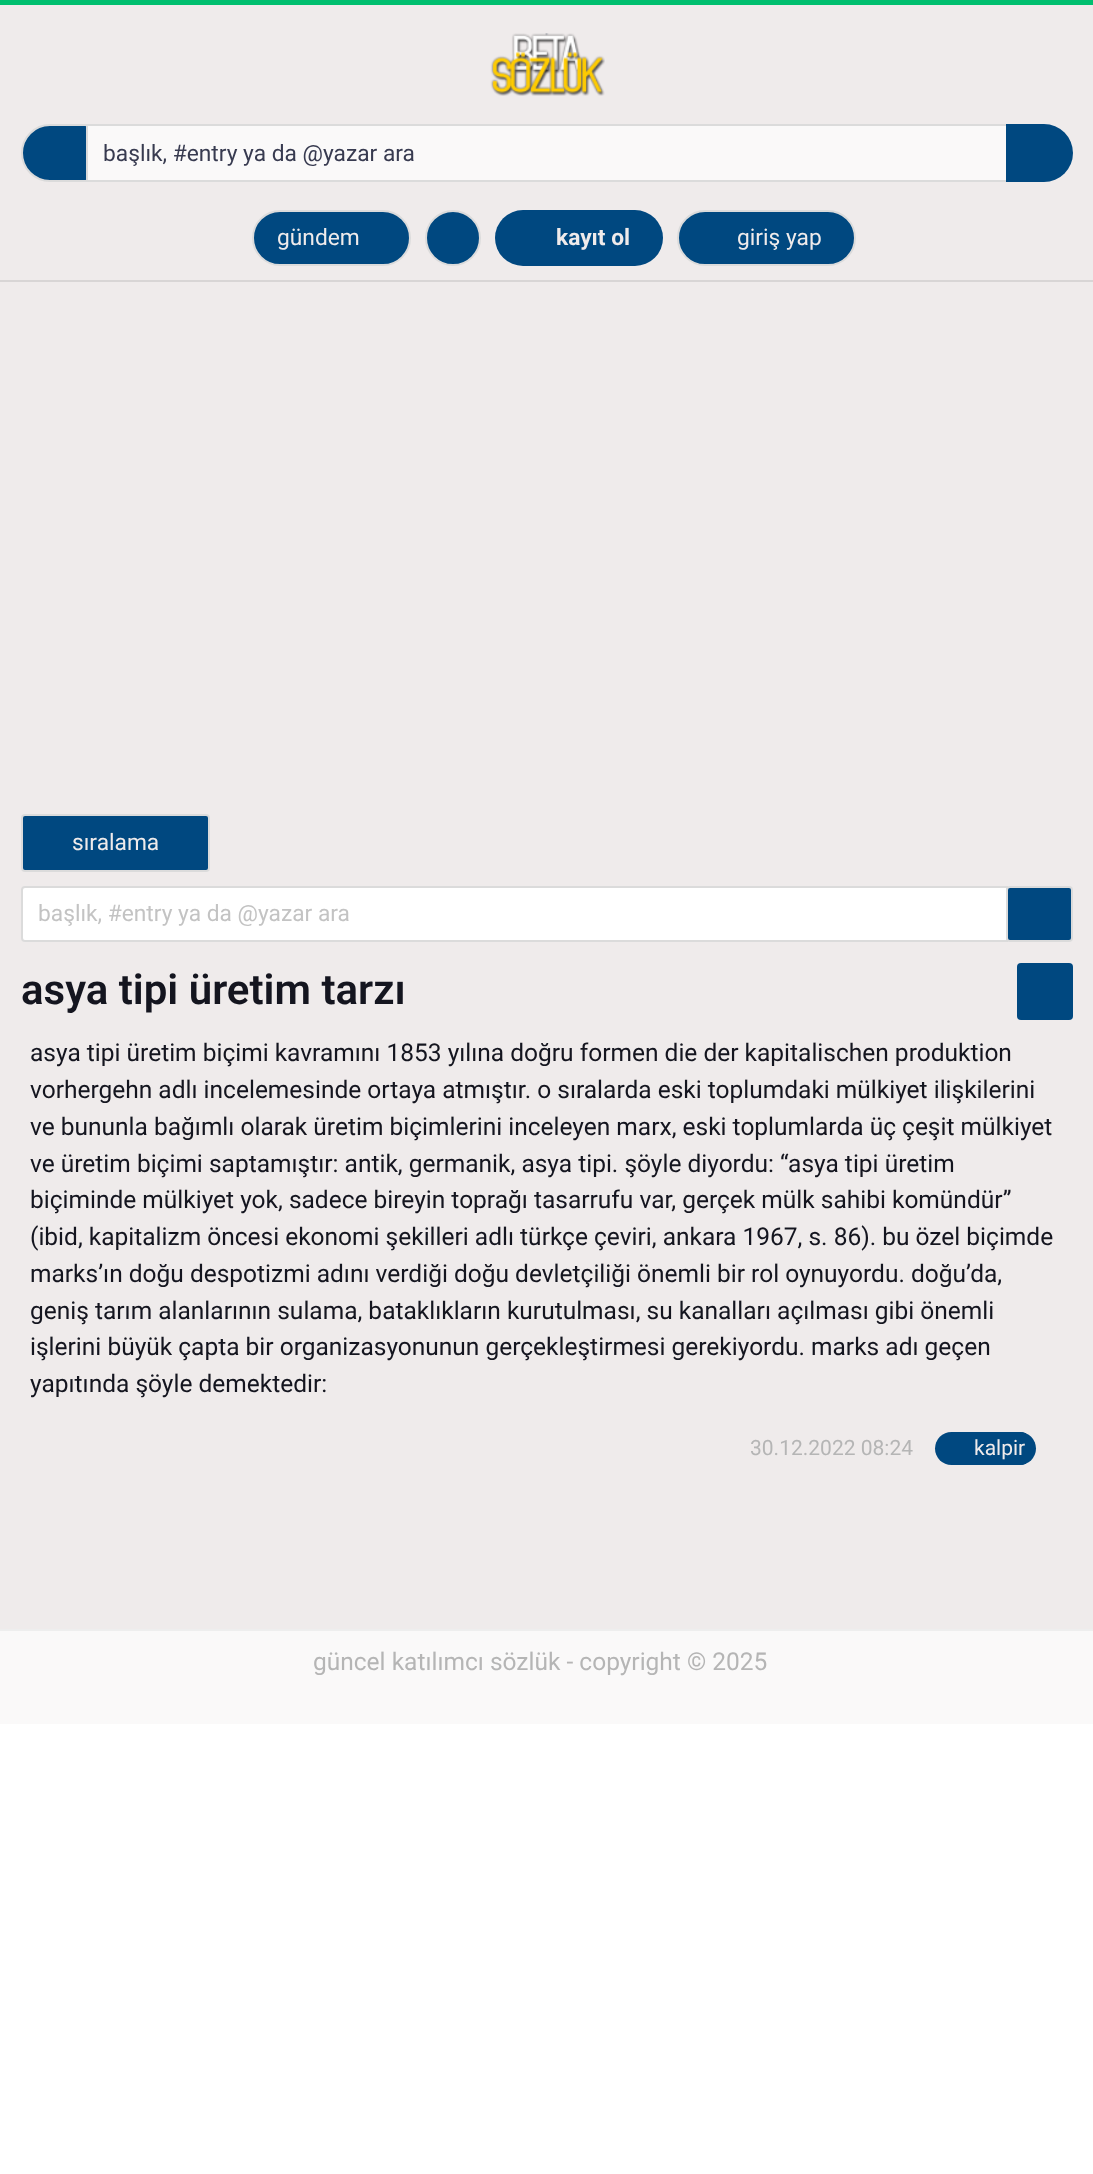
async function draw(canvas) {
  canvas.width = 1093;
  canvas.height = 2174;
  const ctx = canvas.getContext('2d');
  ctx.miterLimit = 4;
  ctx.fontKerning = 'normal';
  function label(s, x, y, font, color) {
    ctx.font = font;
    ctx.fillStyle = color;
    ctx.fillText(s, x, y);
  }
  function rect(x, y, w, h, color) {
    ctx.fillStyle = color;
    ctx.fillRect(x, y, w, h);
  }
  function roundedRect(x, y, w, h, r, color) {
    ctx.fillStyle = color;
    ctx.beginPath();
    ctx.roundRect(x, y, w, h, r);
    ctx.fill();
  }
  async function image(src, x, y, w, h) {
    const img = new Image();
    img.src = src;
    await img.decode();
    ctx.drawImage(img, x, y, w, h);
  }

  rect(0, 0, 1093, 2174, '#fff');
  rect(0, 5, 1093, 1624, '#efebeb');
  rect(0, 0, 1093, 5, '#00bf6f');
  rect(0, 280, 1093, 2, '#d8d5d5');
  await image('assets/img1.png', 490, 33, 115, 63);
  ctx.fillStyle = '#004880';
  ctx.beginPath();
  ctx.roundRect(22, 125, 65, 56, [28, 1.5, 1.5, 28]);
  ctx.fill();
  ctx.strokeStyle = '#dbdbdb';
  ctx.lineWidth = 2;
  ctx.stroke();
  ctx.fillStyle = '#faf9f9';
  ctx.beginPath();
  ctx.rect(87, 125, 920, 56);
  ctx.fill();
  ctx.stroke();
  label('başlık, #entry ya da @yazar ara', 103, 161, '22.75px Roboto', '#383b50');
  ctx.fillStyle = '#004880';
  ctx.beginPath();
  ctx.roundRect(1006, 124, 67, 58, [0, 29, 29, 0]);
  ctx.fill();
  ctx.beginPath();
  ctx.roundRect(253, 211, 157, 54, 27);
  ctx.fill();
  ctx.stroke();
  label('gündem', 277, 245, '22.75px Roboto', '#efebeb');
  ctx.fillStyle = '#004880';
  ctx.beginPath();
  ctx.arc(453, 238, 27, 0, 2 * Math.PI);
  ctx.fill();
  ctx.stroke();
  roundedRect(495, 210, 168, 56, 28, '#004880');
  label('kayıt ol', 556, 245, 'bold 22.75px Roboto', '#efebeb');
  ctx.fillStyle = '#004880';
  ctx.beginPath();
  ctx.roundRect(678, 211, 177, 54, 27);
  ctx.fill();
  ctx.stroke();
  label('giriş yap', 737, 245, '22.75px Roboto', '#efebeb');
  rect(0, 1629, 1093, 2, '#eee');
  ctx.fillStyle = '#004880';
  ctx.beginPath();
  ctx.roundRect(22, 815, 187, 56, 3);
  ctx.fill();
  ctx.stroke();
  label('sıralama', 72, 850, '22.75px Roboto', '#efebeb');
  ctx.fillStyle = '#fff';
  ctx.beginPath();
  ctx.roundRect(22, 887, 985, 54, [3, 0, 0, 3]);
  ctx.fill();
  ctx.stroke();
  label('başlık, #entry ya da @yazar ara', 38, 921, '22.75px Roboto', '#c3c3c3');
  ctx.fillStyle = '#004880';
  ctx.beginPath();
  ctx.roundRect(1007, 887, 65, 54, 3);
  ctx.fill();
  ctx.stroke();
  label('asya tipi üretim tarzı', 21, 1004, '600 42px Roboto', '#14151f');
  roundedRect(1017, 963, 56, 57, 4, '#004880');
  label('asya tipi üretim biçimi kavramını 1853 yılına doğru formen die der kapitalischen produktion', 30, 1061, '24.5px Roboto', '#14151f');
  label('vorhergehn adlı incelemesinde ortaya atmıştır. o sıralarda eski toplumdaki mülkiyet ilişkilerini', 30, 1098, '24.5px Roboto', '#14151f');
  label('ve bununla bağımlı olarak üretim biçimlerini inceleyen marx, eski toplumlarda üç çeşit mülkiyet', 30, 1135, '24.5px Roboto', '#14151f');
  label('ve üretim biçimi saptamıştır: antik, germanik, asya tipi. şöyle diyordu: “asya tipi üretim', 30, 1172, '24.5px Roboto', '#14151f');
  label('biçiminde mülkiyet yok, sadece bireyin toprağı tasarrufu var, gerçek mülk sahibi komündür”', 30, 1208, '24.5px Roboto', '#14151f');
  label('(ibid, kapitalizm öncesi ekonomi şekilleri adlı türkçe çeviri, ankara 1967, s. 86). bu özel biçimde', 30, 1245, '24.5px Roboto', '#14151f');
  label('marks’ın doğu despotizmi adını verdiği doğu devletçiliği önemli bir rol oynuyordu. doğu’da,', 30, 1282, '24.5px Roboto', '#14151f');
  label('geniş tarım alanlarının sulama, bataklıkların kurutulması, su kanalları açılması gibi önemli', 30, 1319, '24.5px Roboto', '#14151f');
  label('işlerini büyük çapta bir organizasyonunun gerçekleştirmesi gerekiyordu. marks adı geçen', 30, 1355, '24.5px Roboto', '#14151f');
  label('yapıtında şöyle demektedir:', 30, 1392, '24.5px Roboto', '#14151f');
  label('30.12.2022 08:24', 750, 1455, '21px Roboto', '#b5b5b5');
  roundedRect(935, 1432, 101, 33, 16.5, '#004880');
  ctx.save();
  ctx.beginPath();
  ctx.roundRect(935, 1432, 101, 33, 16.5);
  ctx.clip();
  rect(973, 1432, 53, 33, '#004880');
  ctx.restore();
  label('kalpir', 974, 1455, '21px Roboto', '#efebeb');
  rect(0, 1631, 1093, 93, '#faf9f9');
  label('güncel katılımcı sözlük - copyright © 2025', 313, 1670, '24.5px Roboto', '#b5b5b5');
}

draw(document.querySelector('canvas'));
